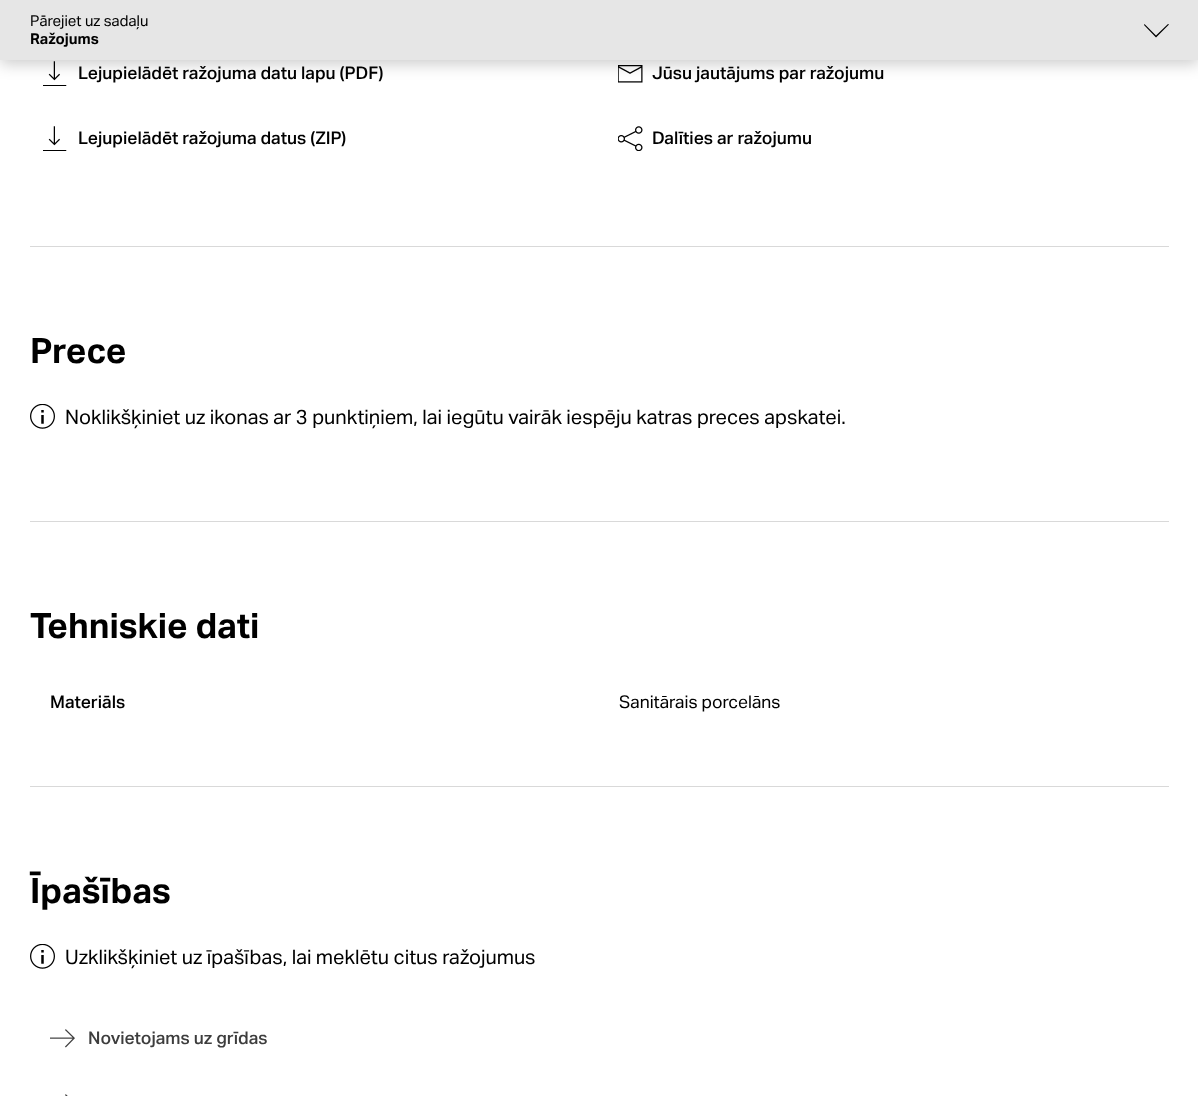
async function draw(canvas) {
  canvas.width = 1198;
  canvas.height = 1096;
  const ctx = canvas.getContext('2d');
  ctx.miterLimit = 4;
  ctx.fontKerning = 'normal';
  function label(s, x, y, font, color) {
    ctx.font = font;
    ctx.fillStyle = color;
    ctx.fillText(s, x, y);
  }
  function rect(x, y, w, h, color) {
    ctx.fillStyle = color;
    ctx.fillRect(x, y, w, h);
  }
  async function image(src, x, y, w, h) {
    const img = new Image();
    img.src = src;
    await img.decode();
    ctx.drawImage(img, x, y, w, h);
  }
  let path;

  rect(0, 0, 1198, 1096, '#fff');
  await image('assets/img1.png', 43, 61, 24, 25);
  await image('assets/img2.png', 618, 65, 25, 18);
  ctx.fillStyle = '#00000033';
  ctx.filter = 'blur(7.5px)';
  ctx.beginPath();
  ctx.rect(0, 4, 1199, 60);
  ctx.fill();
  ctx.filter = 'none';
  rect(0, 0, 1198, 60, '#e6e6e6');
  label('Pārejiet uz sadaļu', 30, 26, '15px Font', '#000');
  label('Ražojums', 30, 44, 'bold 15px Font', '#000');
  path = new Path2D('M1144.5 24L1144 25L1156 37.5L1169 24.5L1168 24L1156 35.5Z');
  ctx.fill(path, 'evenodd');
  label('Lejupielādēt ražojuma datu lapu (PDF)', 78, 79, '500 17.5px Font', '#000');
  await image('assets/img1.png', 43, 126, 24, 25);
  label('Lejupielādēt ražojuma datus (ZIP)', 78, 144, '500 17.5px Font', '#000');
  label('Jūsu jautājums par ražojumu', 652, 79, '500 17.5px Font', '#000');
  await image('assets/img3.png', 618, 126, 25, 25);
  label('Dalīties ar ražojumu', 652, 144, '500 17.5px Font', '#000');
  rect(30, 246, 1139, 1, '#d9d9d9');
  label('Prece', 30, 363, 'bold 35px Font', '#000');
  await image('assets/img4.png', 30, 404, 25, 25);
  label('Noklikšķiniet uz ikonas ar 3 punktiņiem, lai iegūtu vairāk iespēju katras preces apskatei.', 65, 424, '20px Font', '#000');
  rect(30, 521, 1139, 1, '#d9d9d9');
  label('Tehniskie dati', 30, 638, 'bold 35px Font', '#000');
  label('Materiāls', 50, 708, '500 17.5px Font', '#000');
  label('Sanitārais porcelāns', 619, 708, '17.5px Font', '#000');
  rect(30, 786, 1139, 1, '#d9d9d9');
  label('Īpašības', 30, 903, 'bold 35px Font', '#000');
  await image('assets/img4.png', 30, 944, 25, 25);
  label('Uzklikšķiniet uz īpašības, lai meklētu citus ražojumus', 65, 964, '20px Font', '#000');
  await image('assets/img5.png', 50, 1029, 25, 19);
  label('Novietojams uz grīdas', 88, 1044, '500 17.5px Font', '#3d3d3d');
  await image('assets/img6.png', 65, 1094, 3, 2);
}

draw(document.querySelector('canvas'));
